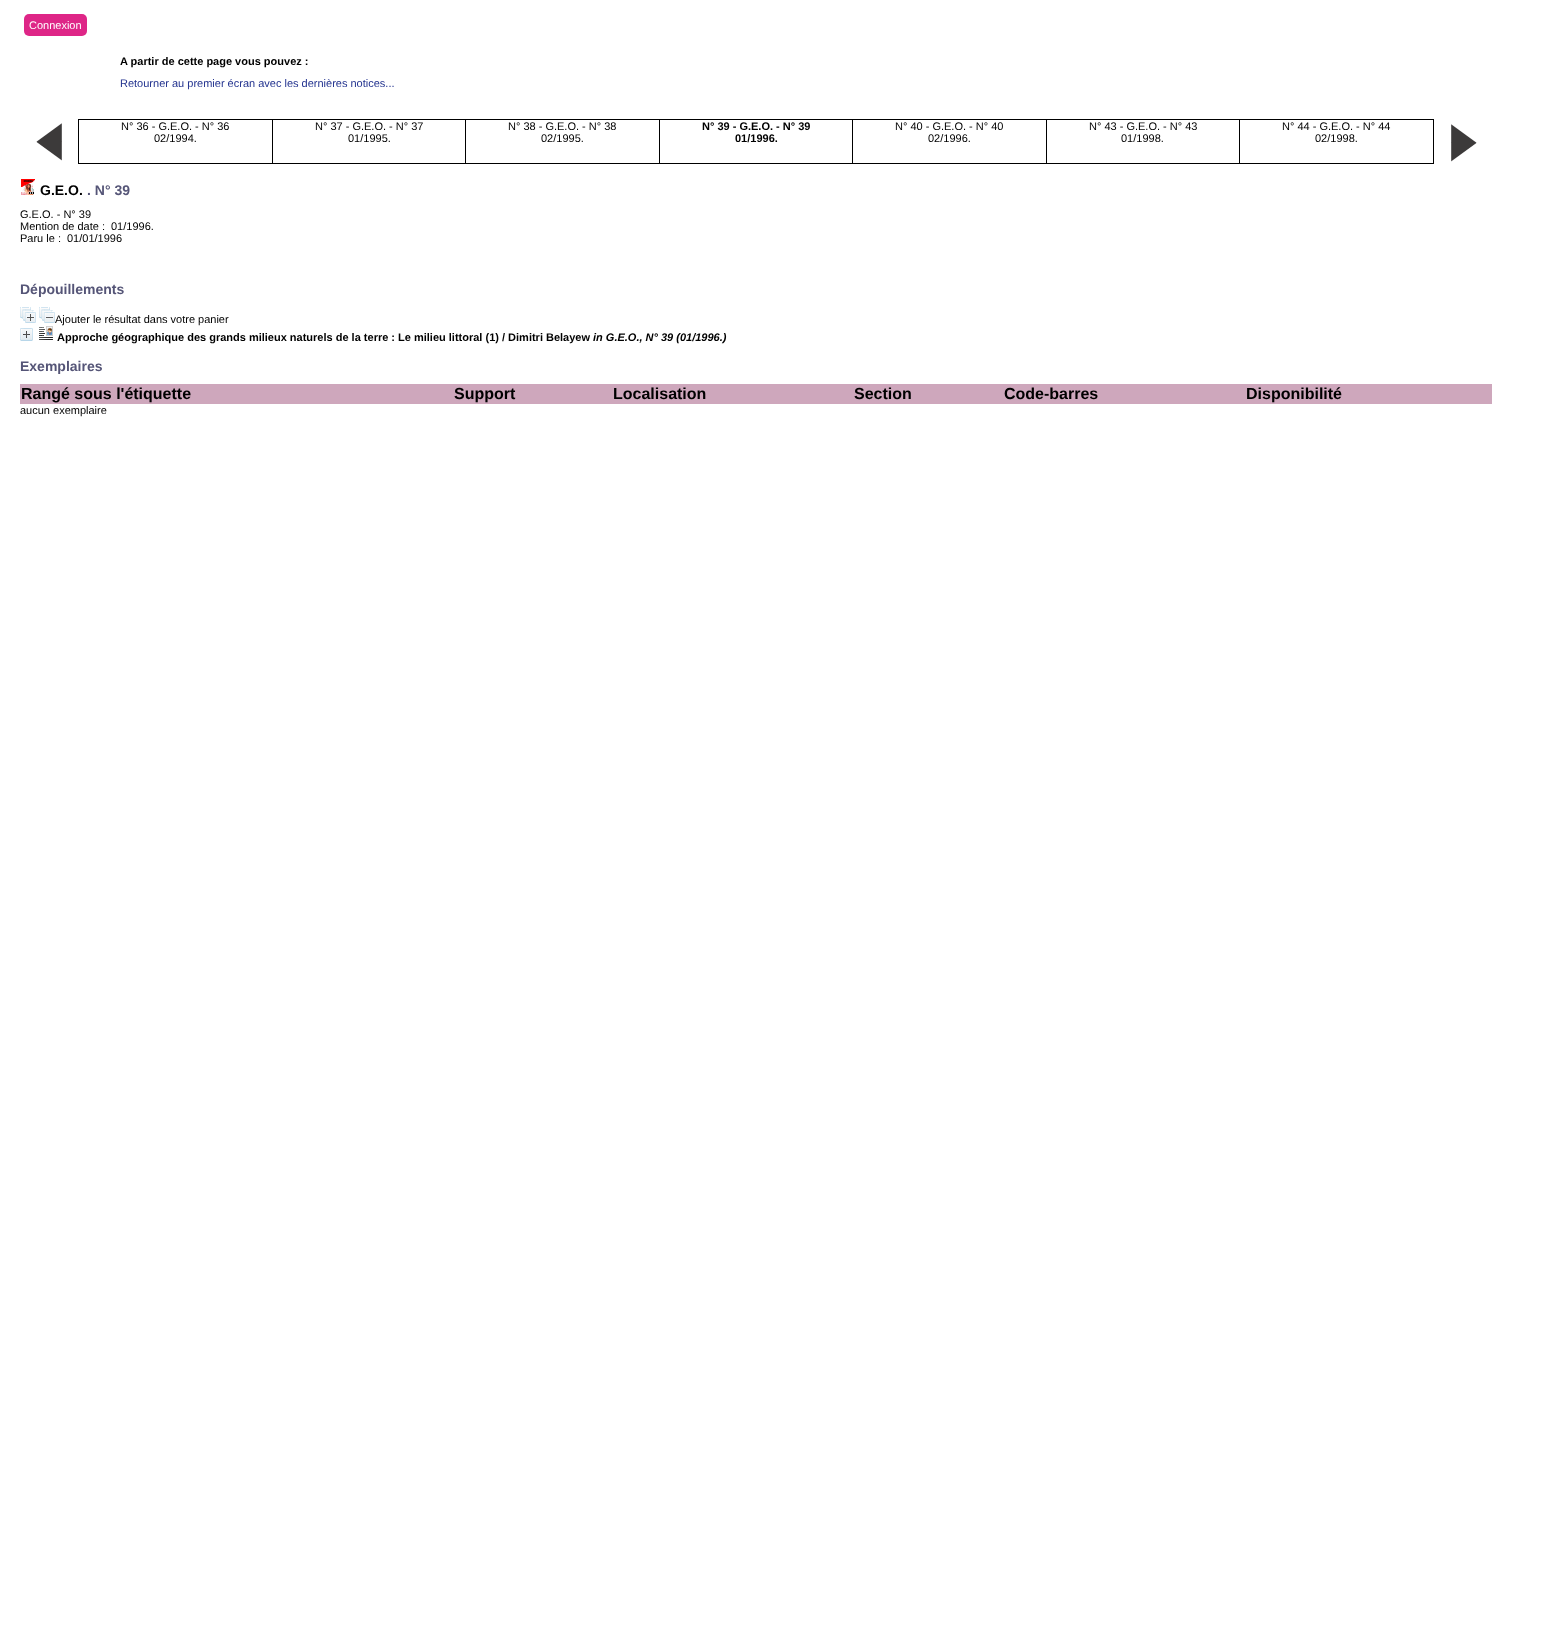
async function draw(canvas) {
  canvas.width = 1542;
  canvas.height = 1650;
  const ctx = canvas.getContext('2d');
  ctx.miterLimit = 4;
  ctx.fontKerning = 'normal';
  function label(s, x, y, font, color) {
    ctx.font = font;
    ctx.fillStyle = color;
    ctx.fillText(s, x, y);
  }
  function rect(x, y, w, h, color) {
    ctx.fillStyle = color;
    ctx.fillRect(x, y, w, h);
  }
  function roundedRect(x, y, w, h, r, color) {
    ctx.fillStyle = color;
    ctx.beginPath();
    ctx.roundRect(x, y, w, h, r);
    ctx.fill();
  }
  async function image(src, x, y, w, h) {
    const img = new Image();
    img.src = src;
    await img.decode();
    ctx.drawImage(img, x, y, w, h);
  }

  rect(0, 0, 1542, 1650, '#fff');
  roundedRect(24, 14, 63, 22, 5, '#de2687');
  label('Connexion', 29, 29, '11px Liberation Sans', '#fff');
  label('A partir de cette page vous pouvez :', 120, 65, 'bold 11px Liberation Sans', '#000');
  label('Retourner au premier écran avec les dernières notices...', 120, 87, '11px Liberation Sans', '#23338f');
  await image('assets/img1.png', 36, 123, 26, 38);
  rect(1239, 119, 195, 1, '#000');
  rect(1433, 119, 1, 45, '#000');
  rect(1239, 163, 195, 1, '#000');
  rect(1239, 119, 1, 45, '#000');
  rect(1046, 119, 194, 1, '#000');
  rect(1046, 163, 194, 1, '#000');
  rect(1046, 119, 1, 45, '#000');
  rect(852, 119, 195, 1, '#000');
  rect(852, 163, 195, 1, '#000');
  rect(852, 119, 1, 45, '#000');
  rect(659, 119, 194, 1, '#000');
  rect(659, 163, 194, 1, '#000');
  rect(659, 119, 1, 45, '#000');
  rect(465, 119, 195, 1, '#000');
  rect(465, 163, 195, 1, '#000');
  rect(465, 119, 1, 45, '#000');
  rect(272, 119, 194, 1, '#000');
  rect(272, 163, 194, 1, '#000');
  rect(272, 119, 1, 45, '#000');
  rect(78, 119, 195, 1, '#000');
  rect(78, 163, 195, 1, '#000');
  rect(78, 119, 1, 45, '#000');
  label('N° 36 - G.E.O. - N° 36', 121, 130, '11px Liberation Sans', '#000');
  label('02/1994.', 154, 142, '11px Liberation Sans', '#000');
  label('N° 37 - G.E.O. - N° 37', 315, 130, '11px Liberation Sans', '#000');
  label('01/1995.', 348, 142, '11px Liberation Sans', '#000');
  label('N° 38 - G.E.O. - N° 38', 508, 130, '11px Liberation Sans', '#000');
  label('02/1995.', 541, 142, '11px Liberation Sans', '#000');
  label('N° 39 - G.E.O. - N° 39', 702, 130, 'bold 11px Liberation Sans', '#000');
  label('01/1996.', 735, 142, 'bold 11px Liberation Sans', '#000');
  label('N° 40 - G.E.O. - N° 40', 895, 130, '11px Liberation Sans', '#000');
  label('02/1996.', 928, 142, '11px Liberation Sans', '#000');
  label('N° 43 - G.E.O. - N° 43', 1089, 130, '11px Liberation Sans', '#000');
  label('01/1998.', 1121, 142, '11px Liberation Sans', '#000');
  label('N° 44 - G.E.O. - N° 44', 1282, 130, '11px Liberation Sans', '#000');
  label('02/1998.', 1315, 142, '11px Liberation Sans', '#000');
  await image('assets/img2.png', 1451, 124, 26, 38);
  await image('assets/img3.png', 21, 179, 14, 16);
  label('G.E.O.', 40, 195, 'bold 14px Liberation Sans', '#000');
  label('. N° 39', 87, 195, 'bold 14px Liberation Sans', '#557');
  label('G.E.O. - N° 39', 20, 218, '11px Liberation Sans', '#000');
  label('Mention de date :', 20, 230, '11px Liberation Sans', '#000');
  label('01/1996.', 111, 230, '11px Liberation Sans', '#000');
  label('Paru le :', 20, 242, '11px Liberation Sans', '#000');
  label('01/01/1996', 67, 242, '11px Liberation Sans', '#000');
  label('Dépouillements', 20, 294, 'bold 14px Liberation Sans', '#557');
  await image('assets/img4.png', 20, 307, 16, 16);
  await image('assets/img5.png', 39, 307, 16, 16);
  label('Ajouter le résultat dans votre panier', 55, 323, '11px Liberation Sans', '#000');
  await image('assets/img6.png', 20, 328, 13, 13);
  await image('assets/img7.png', 39, 326, 14, 14);
  label('Approche géographique des grands milieux naturels de la terre : Le milieu littoral (1) / Dimitri Belayew', 57, 341, 'bold 11px Liberation Sans', '#000');
  label('in G.E.O., N° 39 (01/1996.)', 593, 341, 'italic bold 11px Liberation Sans', '#000');
  label('Exemplaires', 20, 371, 'bold 14px Liberation Sans', '#557');
  rect(20, 384, 1472, 20, '#cea7bc');
  label('Rangé sous l\'étiquette', 21, 399, 'bold 16px Liberation Sans', '#000');
  label('Support', 454, 399, 'bold 16px Liberation Sans', '#000');
  label('Localisation', 613, 399, 'bold 16px Liberation Sans', '#000');
  label('Section', 854, 399, 'bold 16px Liberation Sans', '#000');
  label('Code-barres', 1004, 399, 'bold 16px Liberation Sans', '#000');
  label('Disponibilité', 1246, 399, 'bold 16px Liberation Sans', '#000');
  label('aucun exemplaire', 20, 414, '11px Liberation Sans', '#000');
}

draw(document.querySelector('canvas'));
